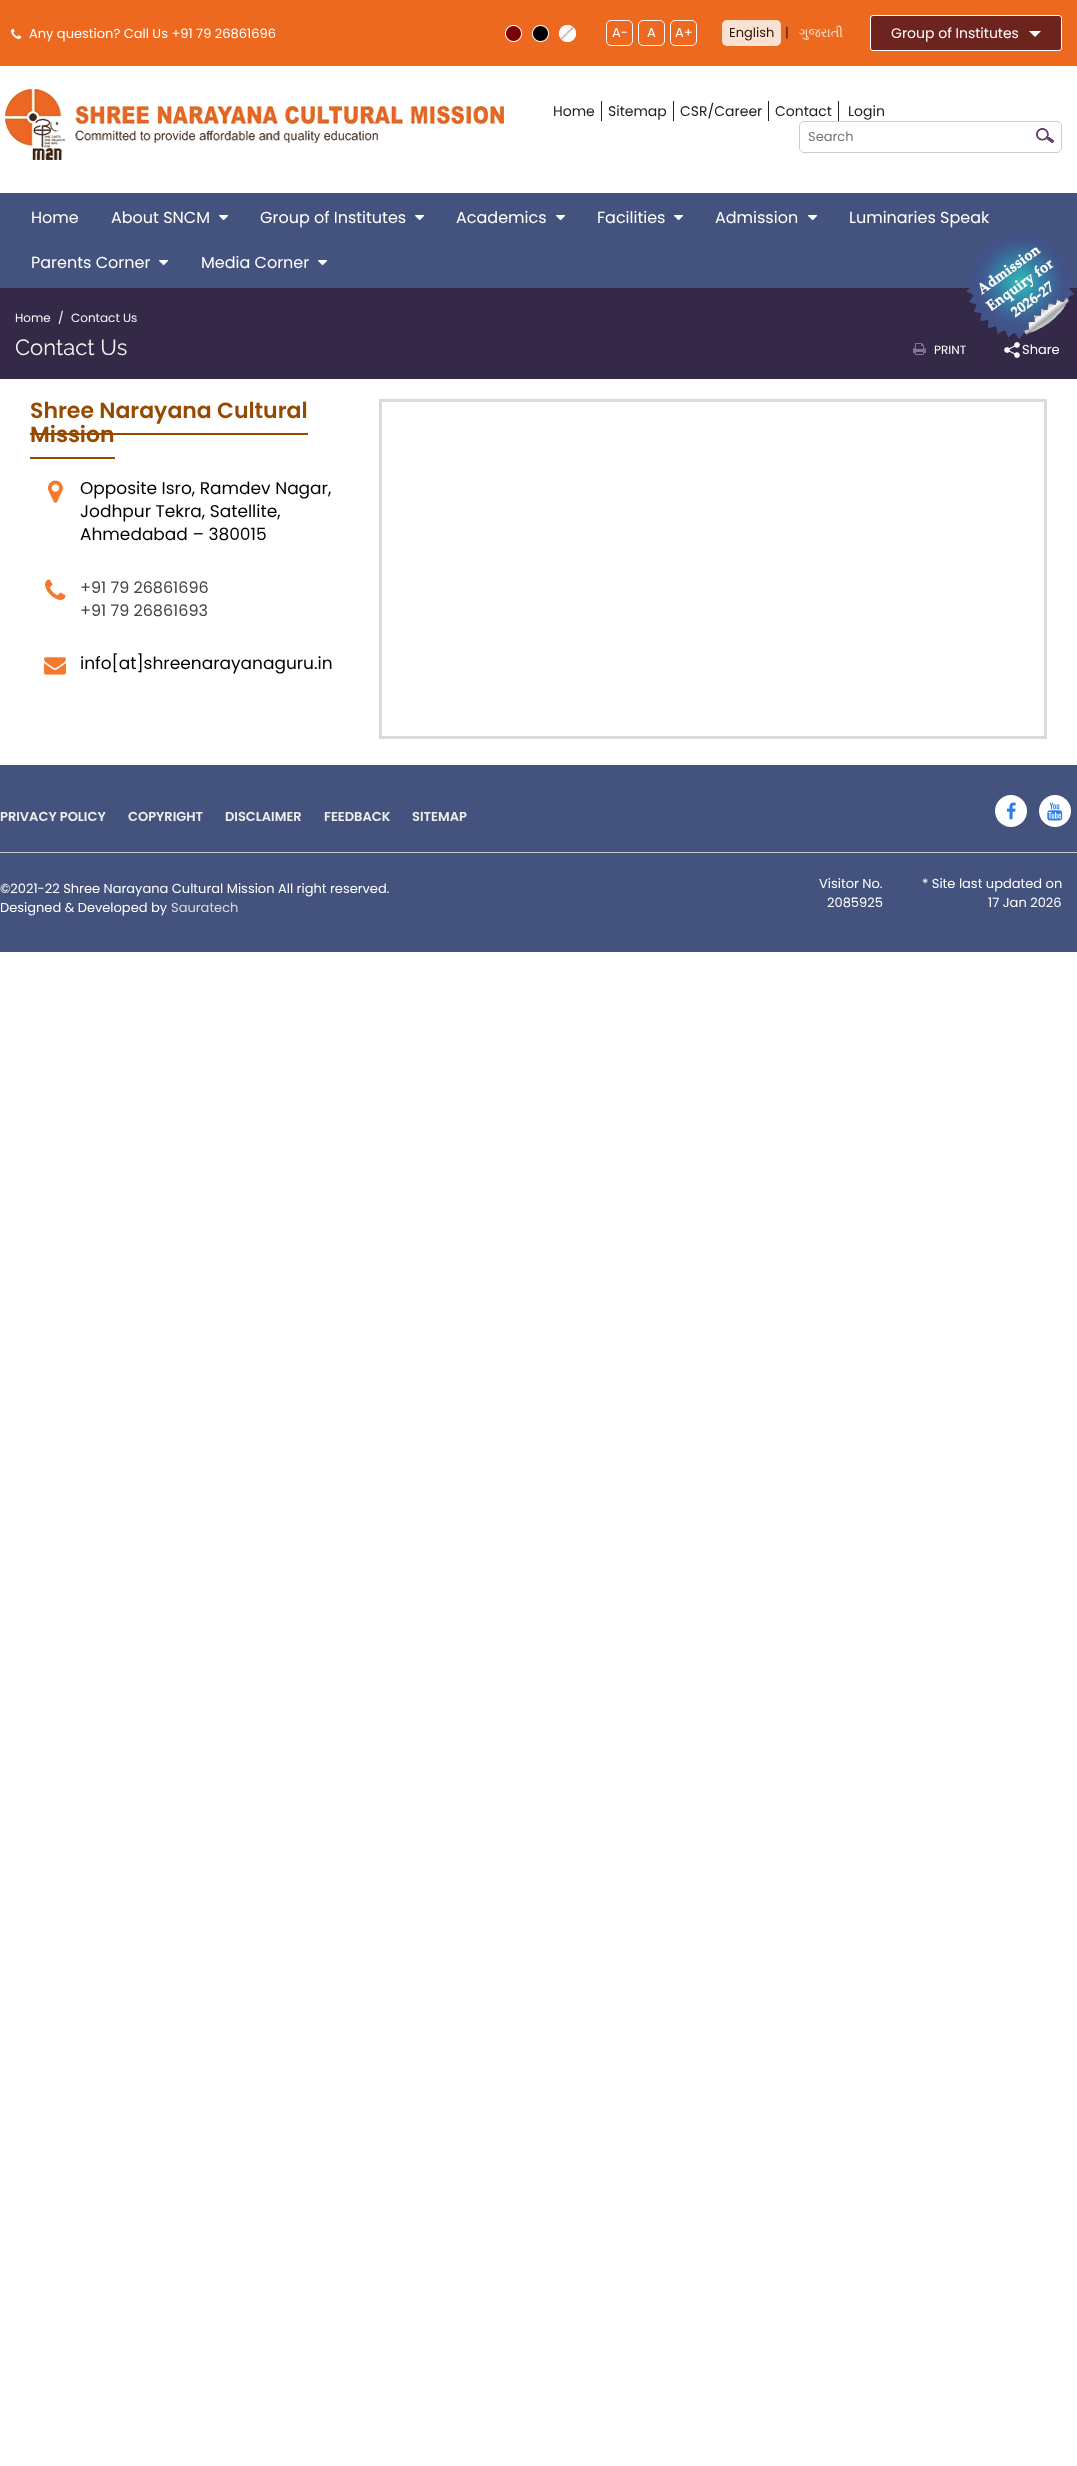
async function draw(canvas) {
  canvas.width = 1077;
  canvas.height = 2466;
  const ctx = canvas.getContext('2d');
  ctx.miterLimit = 4;
  ctx.fontKerning = 'normal';
  function label(s, x, y, font, color) {
    ctx.font = font;
    ctx.fillStyle = color;
    ctx.fillText(s, x, y);
  }
  function rect(x, y, w, h, color) {
    ctx.fillStyle = color;
    ctx.fillRect(x, y, w, h);
  }
  function roundedRect(x, y, w, h, r, color) {
    ctx.fillStyle = color;
    ctx.beginPath();
    ctx.roundRect(x, y, w, h, r);
    ctx.fill();
  }
  async function image(src, x, y, w, h) {
    const img = new Image();
    img.src = src;
    await img.decode();
    ctx.drawImage(img, x, y, w, h);
  }
  let path;

  rect(0, 0, 1077, 2466, '#fff');
  rect(0, 0, 1077, 66, '#ec691f');
  await image('assets/img1.png', 11, 28, 11, 11);
  label('Any question? Call Us +91 79 26861696', 29, 38, '13px Poppins', '#fff');
  await image('assets/img2.png', 505, 25, 17, 17);
  await image('assets/img3.png', 532, 25, 17, 17);
  await image('assets/img4.png', 559, 25, 17, 17);
  ctx.beginPath();
  ctx.roundRect(606.5, 20.5, 26, 25, 4.5);
  ctx.strokeStyle = '#f9f9f9';
  ctx.stroke();
  label('A-', 612, 37, '13px Poppins', '#fff');
  ctx.beginPath();
  ctx.roundRect(638.5, 20.5, 26, 25, 4.5);
  ctx.stroke();
  label('A', 647, 37, '13px Poppins', '#fff');
  ctx.beginPath();
  ctx.roundRect(670.5, 20.5, 26, 25, 4.5);
  ctx.stroke();
  label('A+', 675, 37, '13px Poppins', '#fff');
  roundedRect(722, 20, 59, 26, 5, '#fbe1d2');
  label('English', 729, 37, '13px Poppins', '#2f1506');
  label('|', 785, 37, '13px Poppins', '#2f1506');
  label('ગુજરાતી', 799, 37, '13px FreeSerif', '#fbe1d2');
  ctx.fillStyle = '#6d231e';
  ctx.beginPath();
  ctx.roundRect(870.5, 15.5, 191, 35, 2.5);
  ctx.fill();
  ctx.strokeStyle = '#fff';
  ctx.stroke();
  label('Group of Institutes', 891, 38, '14px Poppins', '#fff');
  path = new Path2D('M1029 31H1041L1035 37Z');
  ctx.fill(path);
  await image('assets/img5.png', 5, 89, 499, 71);
  label('Home', 553, 116, '14px Poppins', '#212121');
  rect(601, 101, 1, 20, '#212121');
  label('Sitemap', 608, 116, '14px Poppins', '#212121');
  rect(673, 101, 1, 20, '#212121');
  label('CSR/Career', 680, 116, '14px Poppins', '#212121');
  rect(768, 101, 1, 20, '#212121');
  label('Contact', 775, 116, '14px Poppins', '#212121');
  rect(838, 101, 1, 20, '#212121');
  label('Login', 848, 116, '14px Poppins', '#212121');
  ctx.beginPath();
  ctx.roundRect(799.5, 121.5, 262, 31, 4.5);
  ctx.strokeStyle = '#ccc';
  ctx.stroke();
  label('Search', 808, 141, '13px Poppins', '#757575');
  await image('assets/img6.png', 1036, 128, 18, 15);
  rect(0, 193, 1077, 95, '#44537d');
  label('Home', 31, 223, '16px Poppins', '#fff');
  label('About SNCM', 111, 223, '16px Poppins', '#fff');
  await image('assets/img7.png', 219, 215, 10, 6);
  label('Group of Institutes', 260, 223, '16px Poppins', '#fff');
  await image('assets/img7.png', 415, 215, 10, 6);
  label('Academics', 456, 223, '16px Poppins', '#fff');
  await image('assets/img7.png', 556, 215, 10, 6);
  label('Facilities', 597, 223, '16px Poppins', '#fff');
  await image('assets/img7.png', 674, 215, 10, 6);
  label('Admission', 715, 223, '16px Poppins', '#fff');
  await image('assets/img7.png', 808, 215, 10, 6);
  label('Luminaries Speak', 849, 223, '16px Poppins', '#fff');
  label('Parents Corner', 31, 268, '16px Poppins', '#fff');
  await image('assets/img7.png', 159, 260, 10, 6);
  label('Media Corner', 201, 268, '16px Poppins', '#fff');
  await image('assets/img7.png', 318, 260, 10, 6);
  rect(0, 288, 1077, 91, '#352948');
  label('Home', 15, 322, '12px Poppins', '#f6f5f3');
  label('/', 58, 322, '12px Poppins', '#fff');
  label('Contact Us', 71, 322, '12px Poppins', '#f6f5f3');
  label('Contact Us', 15, 355, '22px Raleway', '#f6f5f3');
  await image('assets/img8.png', 913, 343, 13, 12);
  label('PRINT', 934, 354, '12px Poppins', '#fff');
  await image('assets/img9.png', 1004, 342, 16, 16);
  label('Share', 1022, 354, '13px Poppins', '#fff');
  label('Shree Narayana Cultural', 30, 418, '600 22px Poppins', '#954a00');
  rect(30, 433, 278, 2, '#954a00');
  label('Mission', 30, 442, '600 22px Poppins', '#954a00');
  rect(30, 457, 85, 2, '#954a00');
  await image('assets/img10.png', 48, 480, 15, 23);
  label('Opposite Isro, Ramdev Nagar,', 80, 494, '17px Poppins', '#000');
  label('Jodhpur Tekra, Satellite,', 80, 517, '17px Poppins', '#000');
  label('Ahmedabad – 380015', 80, 540, '17px Poppins', '#000');
  await image('assets/img11.png', 45, 579, 21, 21);
  label('+91 79 26861696', 80, 593, '16px Poppins', '#444');
  label('+91 79 26861693', 80, 616, '16px Poppins', '#444');
  await image('assets/img12.png', 44, 657, 22, 18);
  label('info[at]shreenarayanaguru.in', 80, 669, '17px Poppins', '#000');
  ctx.strokeStyle = '#dbdbdc';
  ctx.lineWidth = 3;
  ctx.strokeRect(380.5, 400.5, 665, 337);
  rect(0, 765, 1077, 187, '#44537d');
  rect(0, 852, 1077, 1, '#ccc');
  label('PRIVACY POLICY', 0, 821, '600 13px Poppins', '#efefef');
  label('COPYRIGHT', 128, 821, '600 13px Poppins', '#efefef');
  label('DISCLAIMER', 225, 821, '600 13px Poppins', '#efefef');
  label('FEEDBACK', 324, 821, '600 13px Poppins', '#efefef');
  label('SITEMAP', 412, 821, '600 13px Poppins', '#efefef');
  ctx.fillStyle = '#fff';
  ctx.beginPath();
  ctx.arc(1011, 811, 16, 0, 2 * Math.PI);
  ctx.fill();
  await image('assets/img13.png', 1006, 802, 10, 18);
  ctx.beginPath();
  ctx.arc(1055, 811, 16, 0, 2 * Math.PI);
  ctx.fill();
  await image('assets/img14.png', 1047, 802, 16, 19);
  await image('assets/img15.png', 966, 231, 109, 108);
  label('©2021-22 Shree Narayana Cultural Mission All right reserved.', 0, 893, '13px Poppins', '#fff');
  label('Designed & Developed by', 0, 912, '13px Poppins', '#fff');
  label('Sauratech', 171, 912, '13px Poppins', '#ddd');
  label('Visitor No.', 819, 888, '13px Poppins', '#fff');
  label('2085925', 827, 907, '13px Poppins', '#fff');
  label('* Site last updated on', 922, 888, '13px Poppins', '#fff');
  label('17 Jan 2026', 988, 907, '13px Poppins', '#fff');
}

draw(document.querySelector('canvas'));
